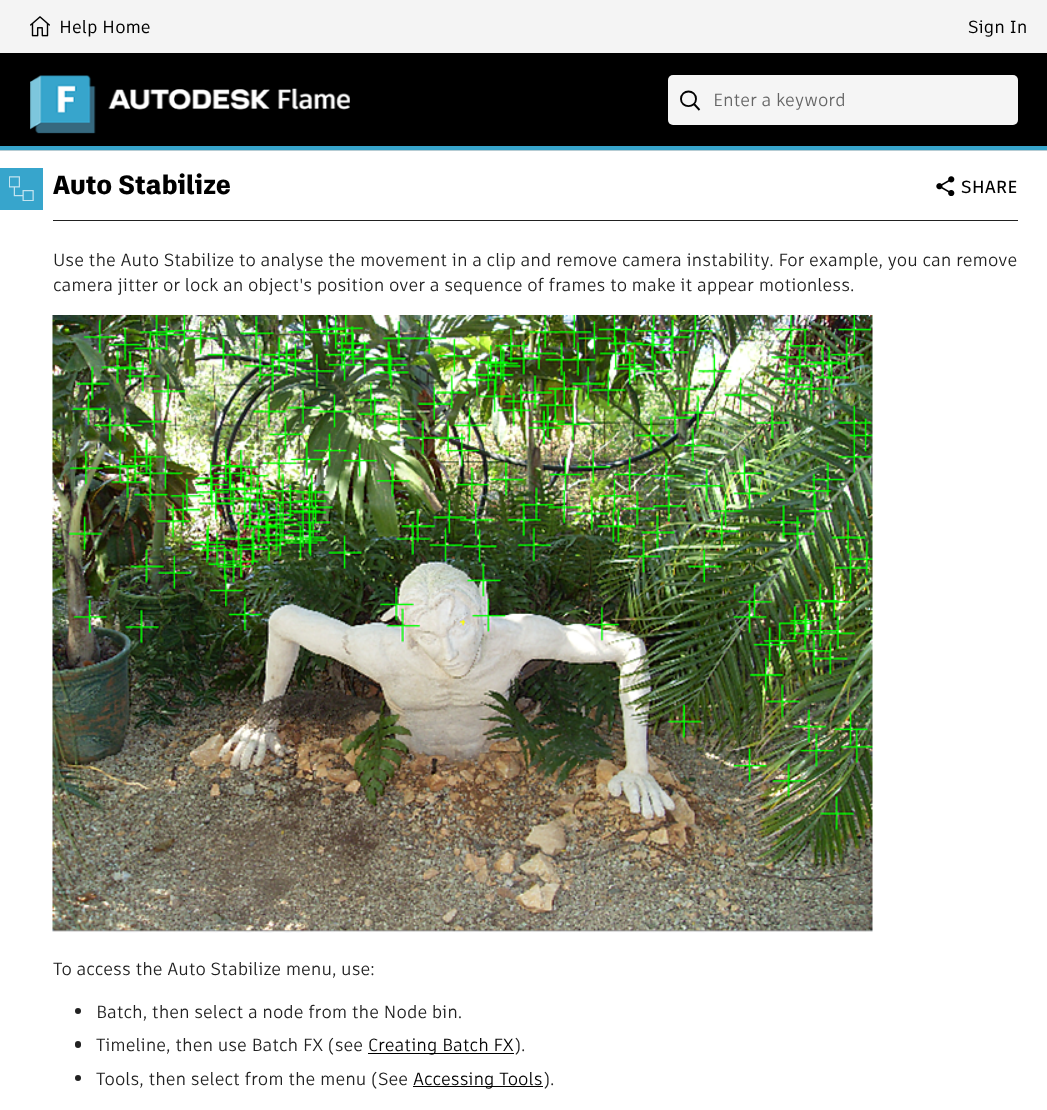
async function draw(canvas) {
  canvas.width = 1047;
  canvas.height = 1110;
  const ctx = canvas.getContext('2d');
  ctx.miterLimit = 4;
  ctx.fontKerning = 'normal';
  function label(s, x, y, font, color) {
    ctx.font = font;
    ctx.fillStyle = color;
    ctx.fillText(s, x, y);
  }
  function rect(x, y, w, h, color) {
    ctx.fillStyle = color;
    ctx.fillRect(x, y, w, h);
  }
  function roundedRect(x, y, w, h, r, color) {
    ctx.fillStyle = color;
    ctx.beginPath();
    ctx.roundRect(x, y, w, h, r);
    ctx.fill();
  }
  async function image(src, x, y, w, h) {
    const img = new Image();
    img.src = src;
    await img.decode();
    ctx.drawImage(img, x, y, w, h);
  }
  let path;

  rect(0, 0, 1047, 1110, '#fff');
  ctx.fillStyle = '#21637a54';
  ctx.filter = 'blur(0.5px)';
  ctx.beginPath();
  ctx.rect(0, 54, 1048, 97);
  ctx.fill();
  ctx.filter = 'none';
  rect(0, 0, 1047, 53, '#f4f4f4');
  await image('assets/img1.png', 30, 16, 20, 21);
  label('Help Home', 59, 33, '500 17.5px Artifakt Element', '#000');
  label('Sign In', 968, 33, '500 17.5px Artifakt Element', '#000');
  rect(0, 53, 1047, 93, '#000');
  rect(0, 146, 1047, 4, '#37a5cc');
  await image('assets/img2.png', 30, 75, 320, 59);
  roundedRect(668, 75, 350, 50, 5, '#f5f5f5');
  path = new Path2D('M694 104L699.5 110M696 99C696 108.5 681 108.5 681 99C681 89 696 89 696 99Z');
  ctx.strokeStyle = '#000';
  ctx.lineWidth = 1.9;
  ctx.stroke(path);
  label('Enter a keyword', 713, 106, '17.5px Artifakt Element', '#666');
  rect(0, 168, 43, 42, '#37a5cc');
  await image('assets/img3.png', 9, 176, 25, 25);
  rect(53, 220, 965, 1, '#212121');
  label('Auto Stabilize', 53, 194, '800 26.25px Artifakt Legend', '#000');
  label('Use the Auto Stabilize to analyse the movement in a clip and remove camera instability. For example, you can remove', 53, 266, '17.5px Artifakt Element', '#212121');
  label('camera jitter or lock an object\'s position over a sequence of frames to make it appear motionless.', 53, 291, '17.5px Artifakt Element', '#212121');
  await image('assets/img4.png', 52, 315, 821, 618);
  label('To access the Auto Stabilize menu, use:', 53, 975, '17.5px Artifakt Element', '#212121');
  ctx.beginPath();
  ctx.arc(78, 1011, 3, 0, 2 * Math.PI);
  ctx.fill();
  label('Batch, then select a node from the Node bin.', 96, 1018, '17.5px Artifakt Element', '#212121');
  roundedRect(75, 1041, 6, 7, 3, '#212121');
  label('Timeline, then use Batch FX (see', 96, 1051, '17.5px Artifakt Element', '#212121');
  rect(368, 1053, 146, 1, '#000');
  label('Creating Batch FX', 368, 1051, '17.5px Artifakt Element', '#000');
  label(').', 514, 1051, '17.5px Artifakt Element', '#212121');
  ctx.beginPath();
  ctx.arc(78, 1078, 3, 0, 2 * Math.PI);
  ctx.fill();
  label('Tools, then select from the menu (See', 96, 1085, '17.5px Artifakt Element', '#212121');
  rect(413, 1086, 130, 1, '#000');
  label('Accessing Tools', 413, 1085, '17.5px Artifakt Element', '#000');
  label(').', 543, 1085, '17.5px Artifakt Element', '#212121');
  await image('assets/img5.png', 936, 176, 19, 20);
  label('SHARE', 961, 193, '600 17.5px Artifakt Element', '#000');
}

draw(document.querySelector('canvas'));
